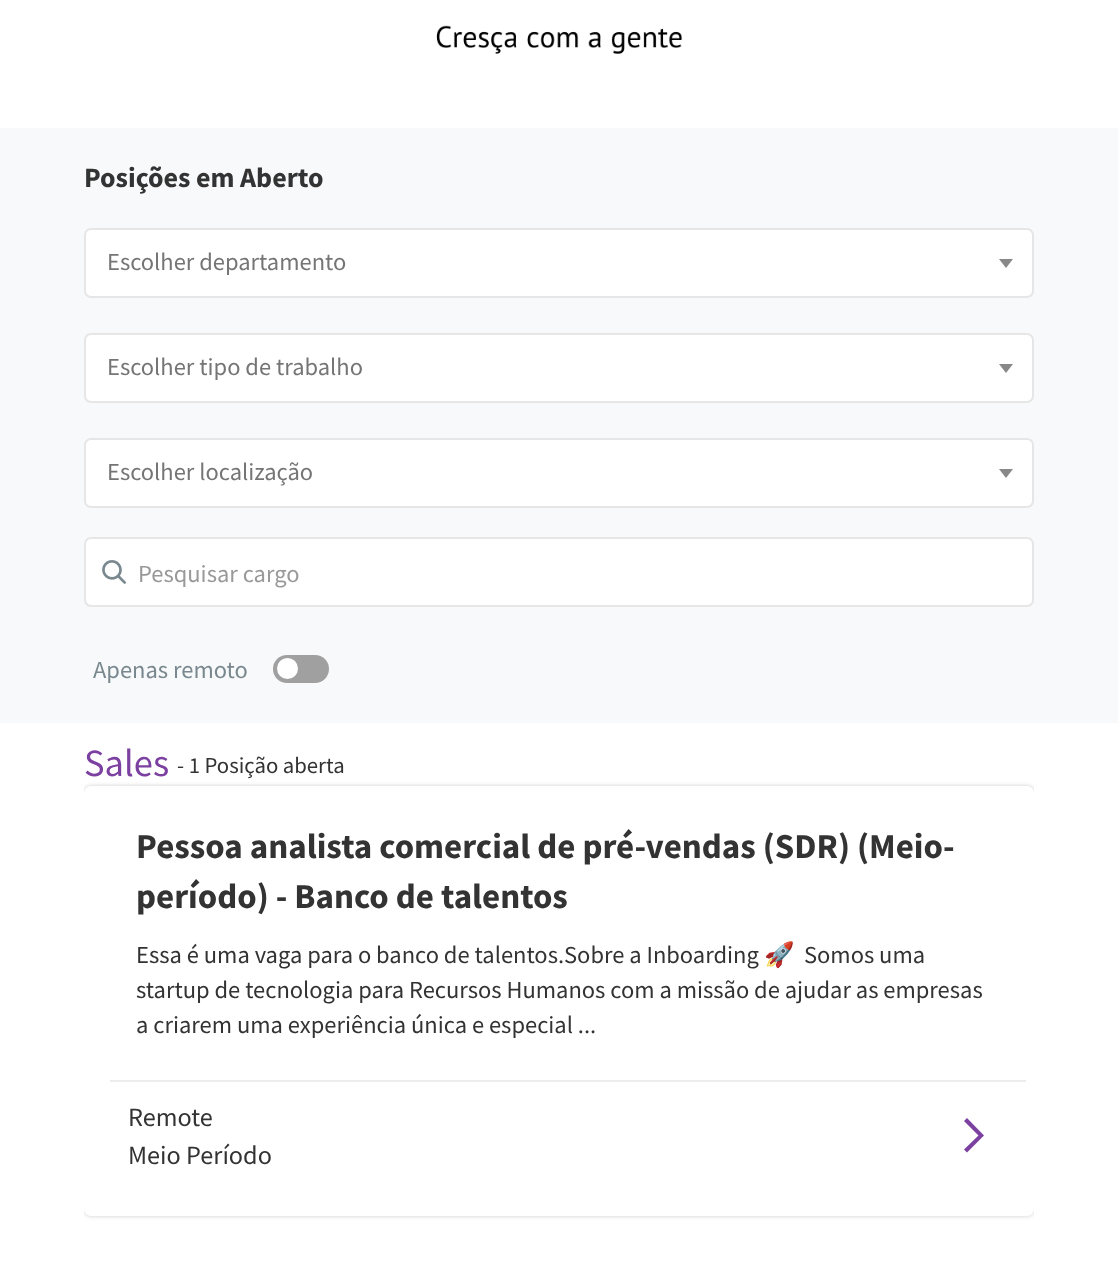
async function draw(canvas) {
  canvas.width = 1118;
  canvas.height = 1261;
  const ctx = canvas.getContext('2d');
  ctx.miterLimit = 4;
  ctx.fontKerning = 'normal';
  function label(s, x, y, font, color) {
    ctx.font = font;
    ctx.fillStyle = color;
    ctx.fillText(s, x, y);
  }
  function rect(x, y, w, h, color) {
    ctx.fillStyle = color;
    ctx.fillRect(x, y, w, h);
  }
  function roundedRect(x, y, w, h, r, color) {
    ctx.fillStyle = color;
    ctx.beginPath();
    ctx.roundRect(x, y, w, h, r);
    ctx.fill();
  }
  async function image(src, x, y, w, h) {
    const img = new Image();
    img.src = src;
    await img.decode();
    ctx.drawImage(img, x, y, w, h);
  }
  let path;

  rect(0, 0, 1118, 1261, '#fff');
  await image('assets/img1.png', 436, 25, 247, 29);
  rect(0, 128, 1118, 595, '#f8f9fa');
  label('Posições em Aberto', 84, 187, 'bold 28px Source Sans Pro', '#333');
  ctx.fillStyle = '#fff';
  ctx.beginPath();
  ctx.roundRect(85, 229, 948, 68, 6);
  ctx.fill();
  ctx.strokeStyle = '#e6e6e6';
  ctx.lineWidth = 2;
  ctx.stroke();
  label('Escolher departamento', 107, 270, '24.5px Source Sans Pro', '#757575');
  ctx.fillStyle = '#888';
  path = new Path2D('M999 259H1013L1006 268Z');
  ctx.fill(path);
  ctx.fillStyle = '#fff';
  ctx.beginPath();
  ctx.roundRect(85, 334, 948, 68, 6);
  ctx.fill();
  ctx.stroke();
  label('Escolher tipo de trabalho', 107, 375, '24.5px Source Sans Pro', '#757575');
  ctx.fillStyle = '#888';
  path = new Path2D('M999 364H1013L1006 373Z');
  ctx.fill(path);
  ctx.fillStyle = '#fff';
  ctx.beginPath();
  ctx.roundRect(85, 439, 948, 68, 6);
  ctx.fill();
  ctx.stroke();
  label('Escolher localização', 107, 480, '24.5px Source Sans Pro', '#757575');
  ctx.fillStyle = '#888';
  path = new Path2D('M999 469H1013L1006 478Z');
  ctx.fill(path);
  ctx.fillStyle = '#fff';
  ctx.beginPath();
  ctx.roundRect(85, 538, 948, 68, 6);
  ctx.fill();
  ctx.stroke();
  await image('assets/img2.png', 102, 560, 24, 24);
  label('Pesquisar cargo', 138, 582, '24.5px Source Sans Pro', '#999');
  label('Apenas remoto', 93, 678, '24.5px Source Sans Pro', '#79888e');
  roundedRect(273, 655, 56, 28, 14, '#a0a0a0');
  ctx.fillStyle = '#fff';
  ctx.beginPath();
  ctx.arc(287.5, 668.5, 10.5, 0, 2 * Math.PI);
  ctx.fill();
  label('Sales', 84, 776, '38.5px Source Sans Pro', '#7b40a0');
  label('- 1 Posição aberta', 177, 773, '22.75px Source Sans Pro', '#333');
  ctx.save();
  ctx.beginPath();
  ctx.rect(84, 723, 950, 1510);
  ctx.clip();
  ctx.fillStyle = '#00000033';
  ctx.filter = 'blur(2px)';
  ctx.beginPath();
  ctx.roundRect(84, 786, 950, 430, 7);
  ctx.fill();
  ctx.filter = 'none';
  ctx.restore();
  roundedRect(84, 786, 950, 430, 7, '#fff');
  label('Pessoa analista comercial de pré-vendas (SDR) (Meio-', 136, 858, 'bold 35px Source Sans Pro', '#333');
  label('período) - Banco de talentos', 136, 908, 'bold 35px Source Sans Pro', '#333');
  label('Essa é uma vaga para o banco de talentos.Sobre a Inboarding', 136, 963, '24.5px Source Sans Pro', '#333');
  label('🚀', 764, 963, '24.5px Noto Color Emoji', '#333');
  label('Somos uma', 804, 963, '24.5px Source Sans Pro', '#333');
  label('startup de tecnologia para Recursos Humanos com a missão de ajudar as empresas', 136, 998, '24.5px Source Sans Pro', '#333');
  label('a criarem uma experiência única e especial ...', 136, 1033, '24.5px Source Sans Pro', '#333');
  rect(110, 1080, 916, 2, '#ececec');
  label('Remote', 128, 1126, '26.25px Source Sans Pro', '#333');
  label('Meio Período', 128, 1164, '26.25px Source Sans Pro', '#333');
  ctx.fillStyle = '#7b40a0';
  path = new Path2D('M967 1118L984 1135.5L967 1152.5L964 1149.5L978.5 1135.5L964 1121Z');
  ctx.fill(path);
}

draw(document.querySelector('canvas'));
